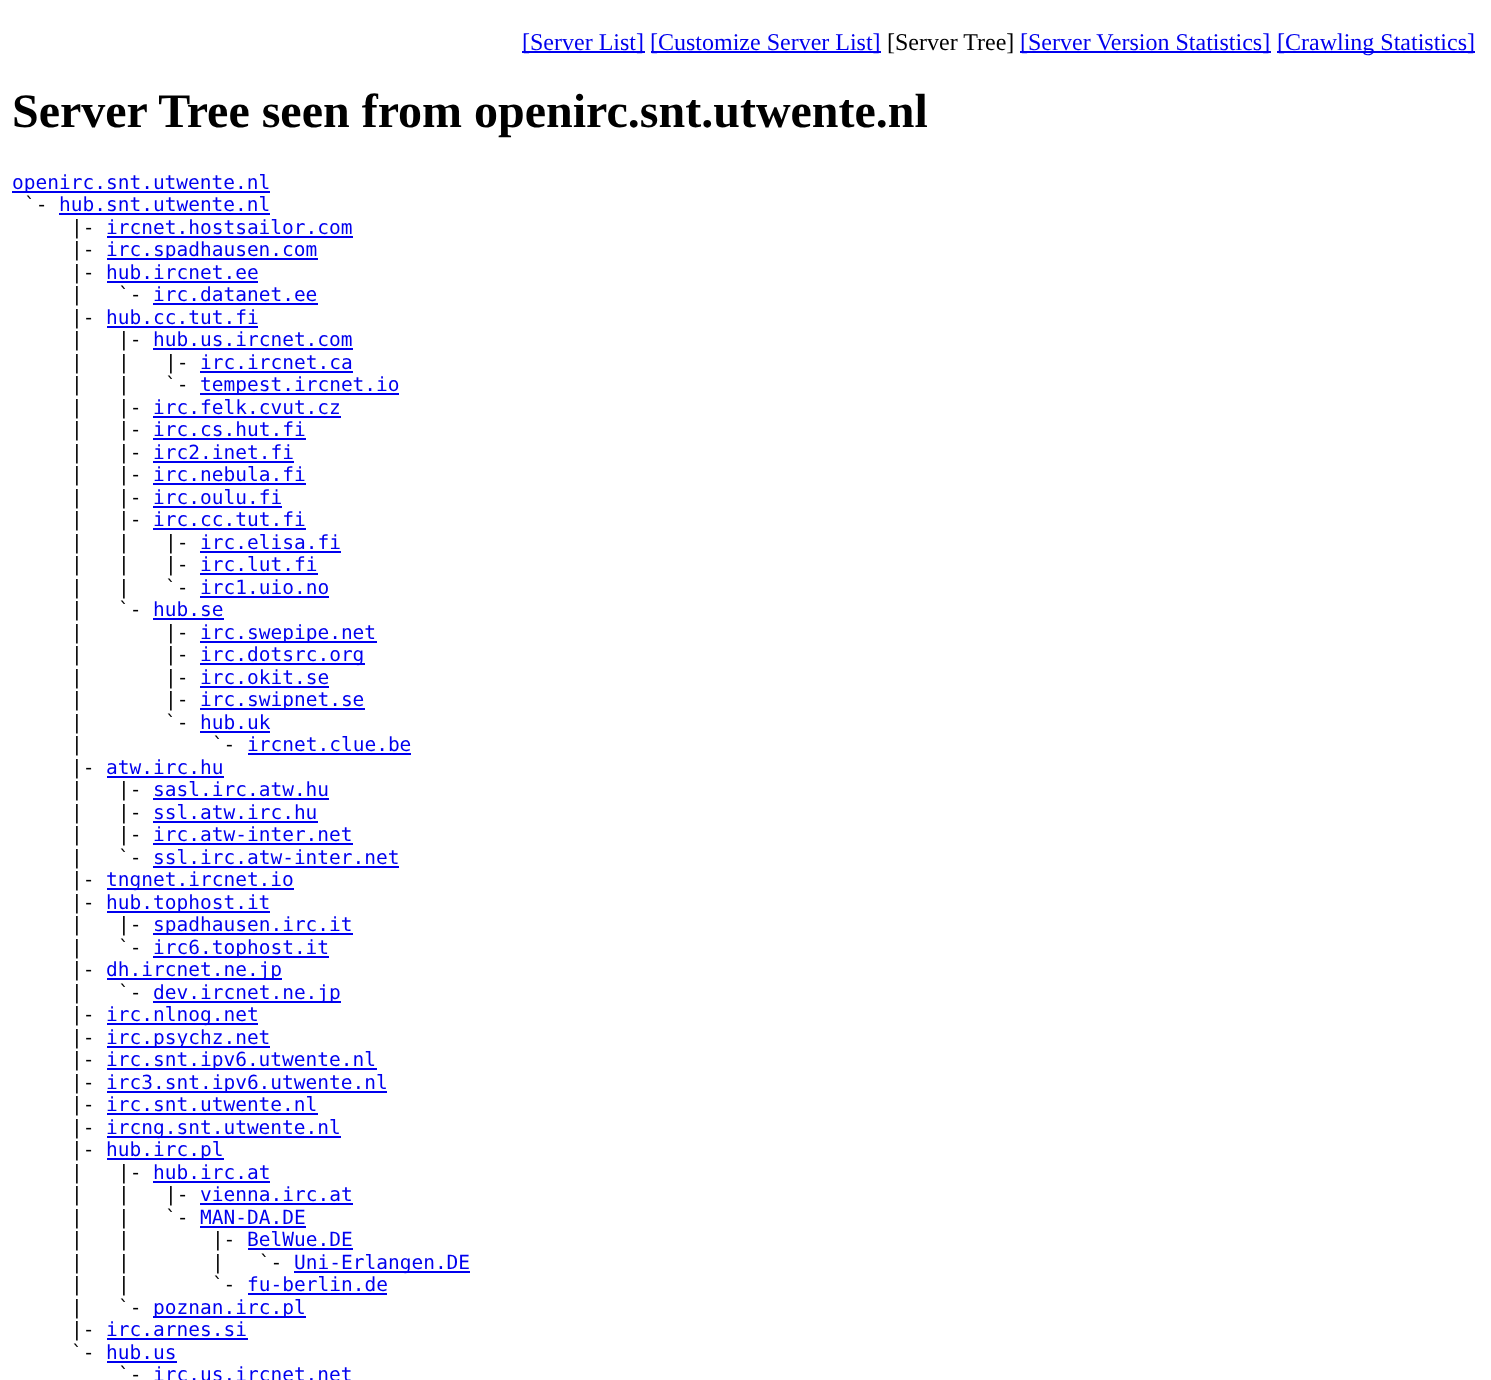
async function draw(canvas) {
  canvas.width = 1491;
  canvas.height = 1380;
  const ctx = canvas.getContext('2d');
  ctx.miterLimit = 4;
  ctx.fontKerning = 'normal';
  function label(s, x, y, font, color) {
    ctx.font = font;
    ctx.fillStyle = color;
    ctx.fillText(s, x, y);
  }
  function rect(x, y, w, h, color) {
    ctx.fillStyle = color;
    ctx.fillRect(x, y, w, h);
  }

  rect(0, 0, 1491, 1380, '#fff');
  rect(522, 51, 123, 2, '#00e');
  label('[Server List]', 522, 50, '24px Liberation Serif', '#00e');
  rect(651, 51, 230, 2, '#00e');
  label('[Customize Server List]', 650, 50, '24px Liberation Serif', '#00e');
  label('[Server Tree]', 887, 50, '24px Liberation Serif', '#000');
  rect(1020, 51, 251, 2, '#00e');
  label('[Server Version Statistics]', 1020, 50, '24px Liberation Serif', '#00e');
  rect(1277, 51, 198, 2, '#00e');
  label('[Crawling Statistics]', 1277, 50, '24px Liberation Serif', '#00e');
  label('Server Tree seen from openirc.snt.utwente.nl', 12, 127, 'bold 48px Liberation Serif', '#000');
  rect(12, 191, 258, 2, '#00e');
  label('openirc.snt.utwente.nl', 12, 189, '19.5px DejaVu Sans Mono', '#00e');
  label('`-', 24, 211, '19.5px DejaVu Sans Mono', '#000');
  label('hub.snt.utwente.nl', 59, 211, '19.5px DejaVu Sans Mono', '#00e');
  rect(59, 213, 211, 2, '#00e');
  label('|-', 71, 234, '19.5px DejaVu Sans Mono', '#000');
  label('ircnet.hostsailor.com', 106, 234, '19.5px DejaVu Sans Mono', '#00e');
  rect(107, 236, 246, 2, '#00e');
  label('|-', 71, 256, '19.5px DejaVu Sans Mono', '#000');
  rect(107, 258, 211, 2, '#00e');
  label('irc.spadhausen.com', 106, 256, '19.5px DejaVu Sans Mono', '#00e');
  label('|-', 71, 279, '19.5px DejaVu Sans Mono', '#000');
  label('hub.ircnet.ee', 106, 279, '19.5px DejaVu Sans Mono', '#00e');
  rect(107, 281, 151, 2, '#00e');
  label('|   `-', 71, 301, '19.5px DejaVu Sans Mono', '#000');
  label('irc.datanet.ee', 153, 301, '19.5px DejaVu Sans Mono', '#00e');
  rect(153, 303, 165, 2, '#00e');
  label('|-', 71, 324, '19.5px DejaVu Sans Mono', '#000');
  label('hub.cc.tut.fi', 106, 324, '19.5px DejaVu Sans Mono', '#00e');
  rect(107, 326, 151, 2, '#00e');
  label('|   |-', 71, 346, '19.5px DejaVu Sans Mono', '#000');
  label('hub.us.ircnet.com', 153, 346, '19.5px DejaVu Sans Mono', '#00e');
  rect(153, 348, 200, 2, '#00e');
  label('|   |   |-', 71, 369, '19.5px DejaVu Sans Mono', '#000');
  label('irc.ircnet.ca', 200, 369, '19.5px DejaVu Sans Mono', '#00e');
  rect(200, 371, 153, 2, '#00e');
  label('|   |   `-', 71, 391, '19.5px DejaVu Sans Mono', '#000');
  rect(200, 393, 199, 2, '#00e');
  label('tempest.ircnet.io', 200, 391, '19.5px DejaVu Sans Mono', '#00e');
  label('|   |-', 71, 414, '19.5px DejaVu Sans Mono', '#000');
  label('irc.felk.cvut.cz', 153, 414, '19.5px DejaVu Sans Mono', '#00e');
  rect(153, 416, 188, 2, '#00e');
  label('|   |-', 71, 436, '19.5px DejaVu Sans Mono', '#000');
  label('irc.cs.hut.fi', 153, 436, '19.5px DejaVu Sans Mono', '#00e');
  rect(153, 438, 153, 2, '#00e');
  label('|   |-', 71, 459, '19.5px DejaVu Sans Mono', '#000');
  label('irc2.inet.fi', 153, 459, '19.5px DejaVu Sans Mono', '#00e');
  rect(153, 461, 141, 2, '#00e');
  label('|   |-', 71, 481, '19.5px DejaVu Sans Mono', '#000');
  label('irc.nebula.fi', 153, 481, '19.5px DejaVu Sans Mono', '#00e');
  rect(153, 483, 153, 2, '#00e');
  label('|   |-', 71, 504, '19.5px DejaVu Sans Mono', '#000');
  label('irc.oulu.fi', 153, 504, '19.5px DejaVu Sans Mono', '#00e');
  rect(153, 506, 129, 2, '#00e');
  label('|   |-', 71, 526, '19.5px DejaVu Sans Mono', '#000');
  label('irc.cc.tut.fi', 153, 526, '19.5px DejaVu Sans Mono', '#00e');
  rect(153, 528, 153, 2, '#00e');
  label('|   |   |-', 71, 549, '19.5px DejaVu Sans Mono', '#000');
  label('irc.elisa.fi', 200, 549, '19.5px DejaVu Sans Mono', '#00e');
  rect(200, 551, 141, 2, '#00e');
  label('|   |   |-', 71, 571, '19.5px DejaVu Sans Mono', '#000');
  label('irc.lut.fi', 200, 571, '19.5px DejaVu Sans Mono', '#00e');
  rect(200, 573, 118, 2, '#00e');
  label('|   |   `-', 71, 594, '19.5px DejaVu Sans Mono', '#000');
  label('irc1.uio.no', 200, 594, '19.5px DejaVu Sans Mono', '#00e');
  rect(200, 596, 129, 2, '#00e');
  label('|   `-', 71, 616, '19.5px DejaVu Sans Mono', '#000');
  label('hub.se', 153, 616, '19.5px DejaVu Sans Mono', '#00e');
  rect(153, 618, 71, 2, '#00e');
  label('|       |-', 71, 639, '19.5px DejaVu Sans Mono', '#000');
  rect(200, 641, 177, 2, '#00e');
  label('irc.swepipe.net', 200, 639, '19.5px DejaVu Sans Mono', '#00e');
  label('|       |-', 71, 661, '19.5px DejaVu Sans Mono', '#000');
  rect(200, 663, 165, 2, '#00e');
  label('irc.dotsrc.org', 200, 661, '19.5px DejaVu Sans Mono', '#00e');
  label('|       |-', 71, 684, '19.5px DejaVu Sans Mono', '#000');
  label('irc.okit.se', 200, 684, '19.5px DejaVu Sans Mono', '#00e');
  rect(200, 686, 129, 2, '#00e');
  label('|       |-', 71, 706, '19.5px DejaVu Sans Mono', '#000');
  rect(200, 708, 165, 2, '#00e');
  label('irc.swipnet.se', 200, 706, '19.5px DejaVu Sans Mono', '#00e');
  label('|       `-', 71, 729, '19.5px DejaVu Sans Mono', '#000');
  label('hub.uk', 200, 729, '19.5px DejaVu Sans Mono', '#00e');
  rect(200, 731, 70, 2, '#00e');
  label('|           `-', 71, 751, '19.5px DejaVu Sans Mono', '#000');
  label('ircnet.clue.be', 247, 751, '19.5px DejaVu Sans Mono', '#00e');
  rect(248, 753, 163, 2, '#00e');
  label('|-', 71, 774, '19.5px DejaVu Sans Mono', '#000');
  label('atw.irc.hu', 106, 774, '19.5px DejaVu Sans Mono', '#00e');
  rect(107, 776, 117, 2, '#00e');
  label('|   |-', 71, 796, '19.5px DejaVu Sans Mono', '#000');
  label('sasl.irc.atw.hu', 153, 796, '19.5px DejaVu Sans Mono', '#00e');
  rect(153, 798, 176, 2, '#00e');
  label('|   |-', 71, 819, '19.5px DejaVu Sans Mono', '#000');
  label('ssl.atw.irc.hu', 153, 819, '19.5px DejaVu Sans Mono', '#00e');
  rect(153, 821, 165, 2, '#00e');
  label('|   |-', 71, 841, '19.5px DejaVu Sans Mono', '#000');
  label('irc.atw-inter.net', 153, 841, '19.5px DejaVu Sans Mono', '#00e');
  rect(153, 843, 200, 2, '#00e');
  label('|   `-', 71, 864, '19.5px DejaVu Sans Mono', '#000');
  label('ssl.irc.atw-inter.net', 153, 864, '19.5px DejaVu Sans Mono', '#00e');
  rect(153, 866, 246, 2, '#00e');
  label('|-', 71, 886, '19.5px DejaVu Sans Mono', '#000');
  rect(107, 888, 187, 2, '#00e');
  label('tngnet.ircnet.io', 106, 886, '19.5px DejaVu Sans Mono', '#00e');
  label('|-', 71, 909, '19.5px DejaVu Sans Mono', '#000');
  rect(107, 911, 163, 2, '#00e');
  label('hub.tophost.it', 106, 909, '19.5px DejaVu Sans Mono', '#00e');
  label('|   |-', 71, 931, '19.5px DejaVu Sans Mono', '#000');
  rect(153, 933, 200, 2, '#00e');
  label('spadhausen.irc.it', 153, 931, '19.5px DejaVu Sans Mono', '#00e');
  label('|   `-', 71, 954, '19.5px DejaVu Sans Mono', '#000');
  rect(153, 956, 176, 2, '#00e');
  label('irc6.tophost.it', 153, 954, '19.5px DejaVu Sans Mono', '#00e');
  label('|-', 71, 976, '19.5px DejaVu Sans Mono', '#000');
  rect(107, 978, 175, 2, '#00e');
  label('dh.ircnet.ne.jp', 106, 976, '19.5px DejaVu Sans Mono', '#00e');
  label('|   `-', 71, 999, '19.5px DejaVu Sans Mono', '#000');
  rect(153, 1001, 188, 2, '#00e');
  label('dev.ircnet.ne.jp', 153, 999, '19.5px DejaVu Sans Mono', '#00e');
  label('|-', 71, 1021, '19.5px DejaVu Sans Mono', '#000');
  rect(107, 1023, 151, 2, '#00e');
  label('irc.nlnog.net', 106, 1021, '19.5px DejaVu Sans Mono', '#00e');
  label('|-', 71, 1044, '19.5px DejaVu Sans Mono', '#000');
  rect(107, 1046, 163, 2, '#00e');
  label('irc.psychz.net', 106, 1044, '19.5px DejaVu Sans Mono', '#00e');
  label('|-', 71, 1066, '19.5px DejaVu Sans Mono', '#000');
  rect(107, 1068, 270, 2, '#00e');
  label('irc.snt.ipv6.utwente.nl', 106, 1066, '19.5px DejaVu Sans Mono', '#00e');
  label('|-', 71, 1089, '19.5px DejaVu Sans Mono', '#000');
  rect(107, 1091, 280, 2, '#00e');
  label('irc3.snt.ipv6.utwente.nl', 106, 1089, '19.5px DejaVu Sans Mono', '#00e');
  label('|-', 71, 1111, '19.5px DejaVu Sans Mono', '#000');
  label('irc.snt.utwente.nl', 106, 1111, '19.5px DejaVu Sans Mono', '#00e');
  rect(107, 1113, 211, 2, '#00e');
  label('|-', 71, 1134, '19.5px DejaVu Sans Mono', '#000');
  rect(107, 1136, 234, 2, '#00e');
  label('ircng.snt.utwente.nl', 106, 1134, '19.5px DejaVu Sans Mono', '#00e');
  label('|-', 71, 1156, '19.5px DejaVu Sans Mono', '#000');
  rect(107, 1158, 117, 2, '#00e');
  label('hub.irc.pl', 106, 1156, '19.5px DejaVu Sans Mono', '#00e');
  label('|   |-', 71, 1179, '19.5px DejaVu Sans Mono', '#000');
  label('hub.irc.at', 153, 1179, '19.5px DejaVu Sans Mono', '#00e');
  rect(153, 1181, 117, 2, '#00e');
  label('|   |   |-', 71, 1201, '19.5px DejaVu Sans Mono', '#000');
  label('vienna.irc.at', 200, 1201, '19.5px DejaVu Sans Mono', '#00e');
  rect(200, 1203, 153, 2, '#00e');
  label('|   |   `-', 71, 1224, '19.5px DejaVu Sans Mono', '#000');
  label('MAN-DA.DE', 200, 1224, '19.5px DejaVu Sans Mono', '#00e');
  rect(200, 1226, 106, 2, '#00e');
  label('|   |       |-', 71, 1246, '19.5px DejaVu Sans Mono', '#000');
  label('BelWue.DE', 247, 1246, '19.5px DejaVu Sans Mono', '#00e');
  rect(248, 1248, 105, 2, '#00e');
  label('|   |       |   `-', 71, 1269, '19.5px DejaVu Sans Mono', '#000');
  rect(294, 1271, 176, 2, '#00e');
  label('Uni-Erlangen.DE', 294, 1269, '19.5px DejaVu Sans Mono', '#00e');
  label('|   |       `-', 71, 1291, '19.5px DejaVu Sans Mono', '#000');
  label('fu-berlin.de', 247, 1291, '19.5px DejaVu Sans Mono', '#00e');
  rect(248, 1293, 139, 2, '#00e');
  label('|   `-', 71, 1314, '19.5px DejaVu Sans Mono', '#000');
  rect(153, 1316, 153, 2, '#00e');
  label('poznan.irc.pl', 153, 1314, '19.5px DejaVu Sans Mono', '#00e');
  label('|-', 71, 1336, '19.5px DejaVu Sans Mono', '#000');
  label('irc.arnes.si', 106, 1336, '19.5px DejaVu Sans Mono', '#00e');
  rect(107, 1338, 141, 2, '#00e');
  label('`-', 71, 1359, '19.5px DejaVu Sans Mono', '#000');
  label('hub.us', 106, 1359, '19.5px DejaVu Sans Mono', '#00e');
  rect(107, 1361, 70, 2, '#00e');
  label('`-', 118, 1381, '19.5px DejaVu Sans Mono', '#000');
  label('irc.us.ircnet.net', 153, 1381, '19.5px DejaVu Sans Mono', '#00e');
}

draw(document.querySelector('canvas'));
